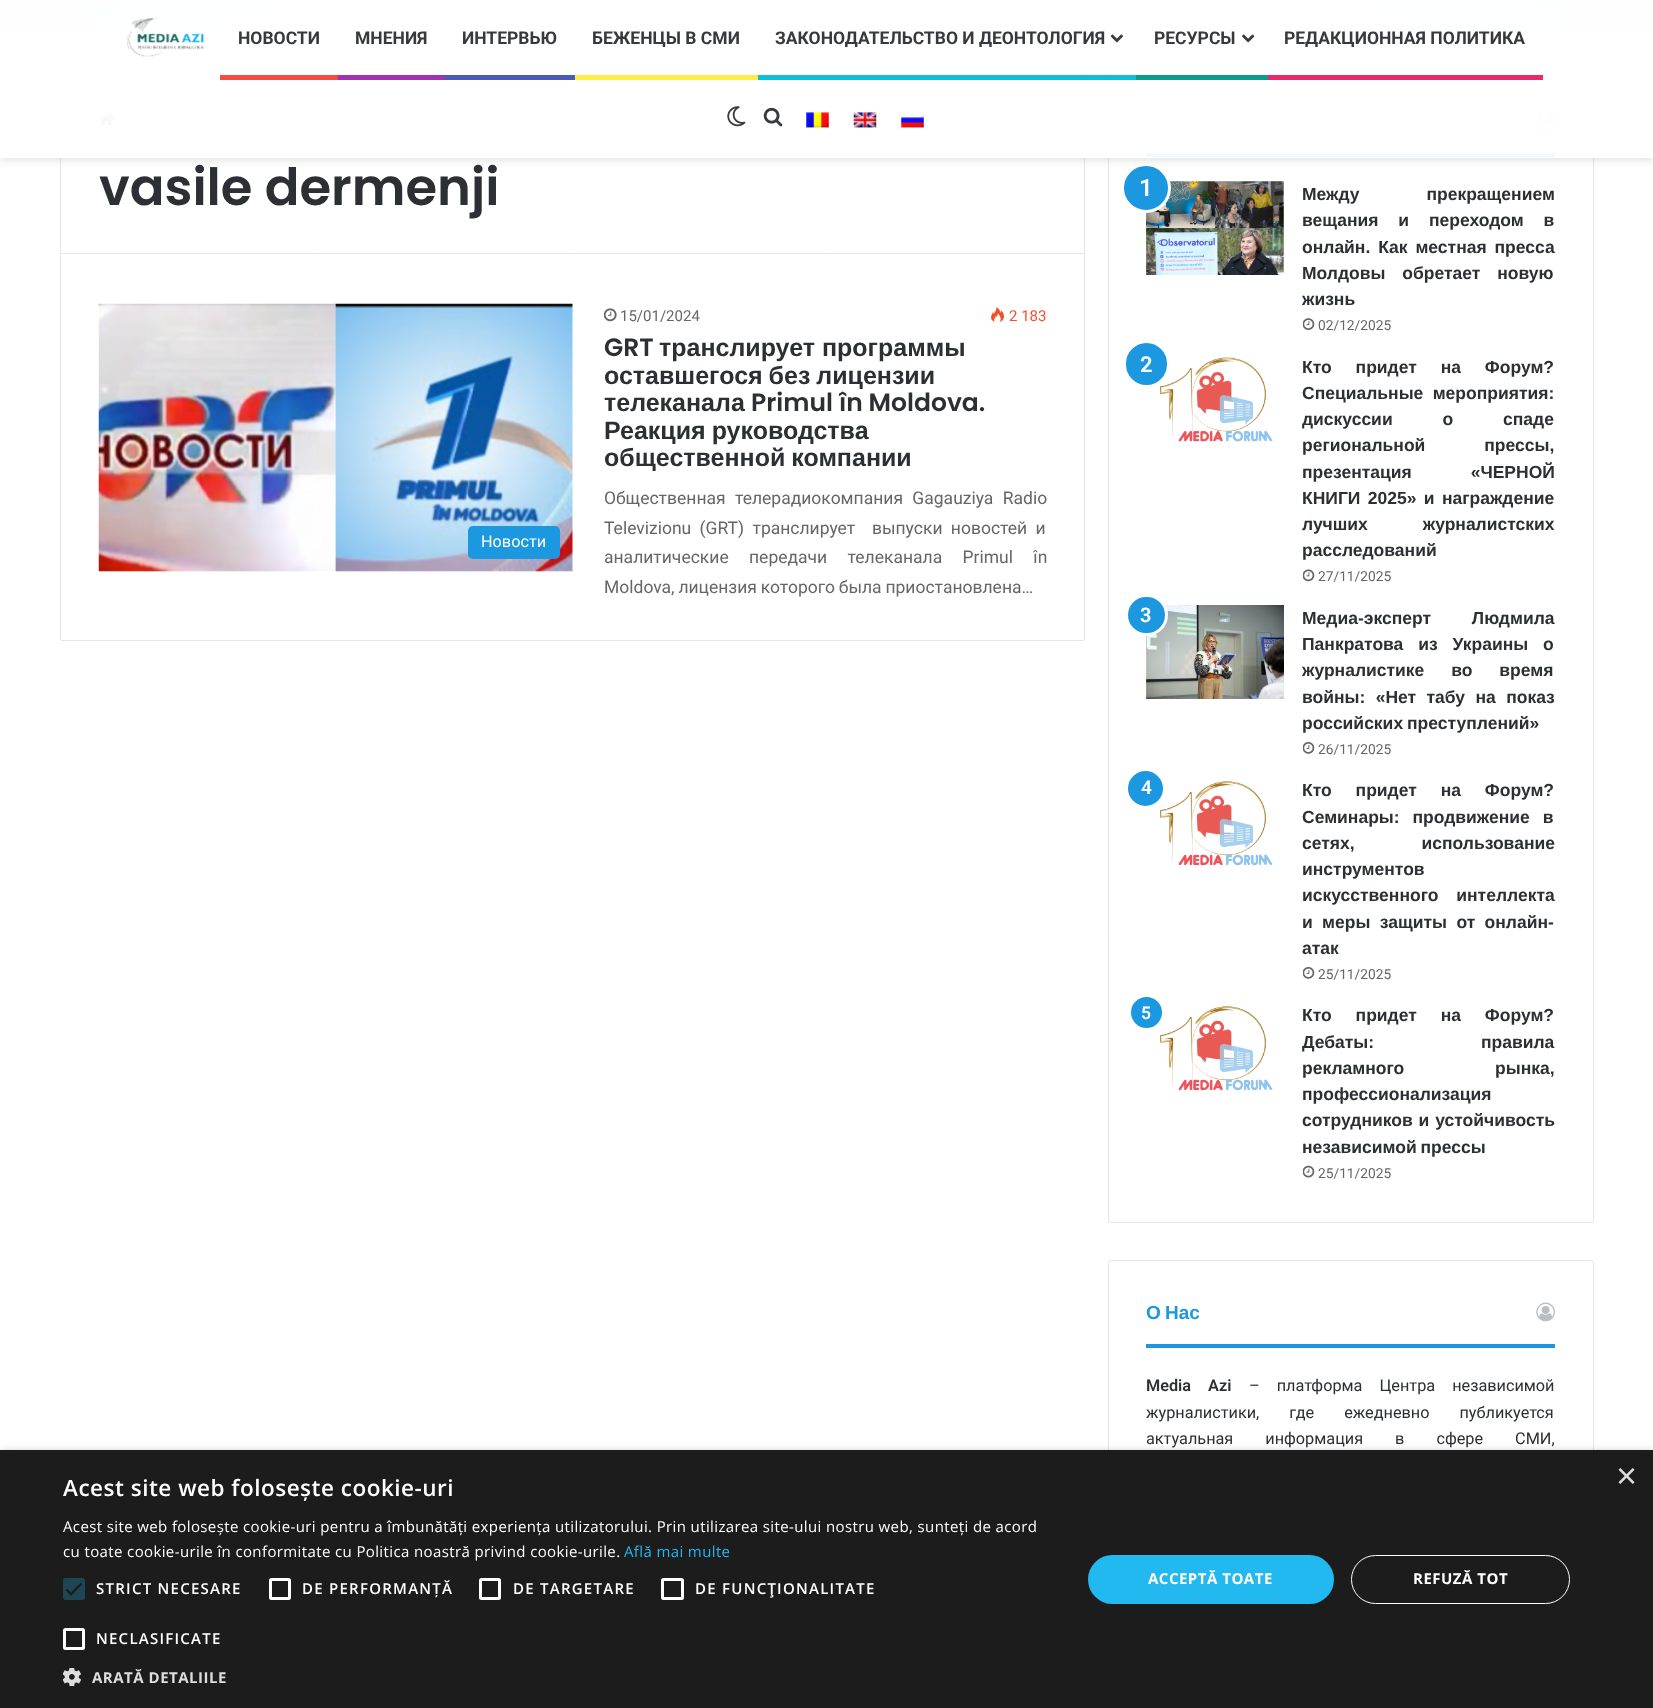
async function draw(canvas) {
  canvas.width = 1653;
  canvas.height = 1708;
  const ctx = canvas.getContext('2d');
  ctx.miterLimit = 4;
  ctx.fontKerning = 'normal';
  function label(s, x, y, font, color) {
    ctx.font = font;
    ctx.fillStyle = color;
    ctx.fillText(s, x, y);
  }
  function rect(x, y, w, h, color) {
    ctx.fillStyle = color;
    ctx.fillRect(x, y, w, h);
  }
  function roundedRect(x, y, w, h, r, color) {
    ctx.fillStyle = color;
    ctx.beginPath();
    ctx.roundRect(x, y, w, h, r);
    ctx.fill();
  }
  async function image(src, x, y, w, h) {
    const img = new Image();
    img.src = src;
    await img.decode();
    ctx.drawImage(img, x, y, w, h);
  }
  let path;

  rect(0, 0, 1653, 1708, '#fff');
  ctx.beginPath();
  ctx.roundRect(60.5, 69.5, 1024, 184, [2, 2, 0, 0]);
  ctx.strokeStyle = '#e6e6e6';
  ctx.stroke();
  ctx.beginPath();
  ctx.roundRect(1108.5, 69.5, 485, 1153, 2);
  ctx.stroke();
  ctx.fillStyle = '#0000001a';
  ctx.filter = 'blur(12.5px)';
  ctx.beginPath();
  ctx.rect(25, -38, 1604, 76);
  ctx.fill();
  ctx.filter = 'none';
  await image('assets/img1.png', 0, 0, 1653, 32);
  await image('assets/img10.png', 99, 113, 15, 13);
  rect(1146, 153, 409, 4, '#1b98e0');
  await image('assets/img14.png', 1538, 111, 17, 20);
  await image('assets/img15.png', 1146, 181, 138, 94);
  ctx.beginPath();
  ctx.arc(1146, 188, 23.5, 0, 2 * Math.PI);
  ctx.fill();
  ctx.strokeStyle = '#fff';
  ctx.lineWidth = 3;
  ctx.stroke();
  ctx.save();
  path = new Path2D('M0 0H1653V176H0ZM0 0H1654V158H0Z');
  ctx.clip(path, 'evenodd');
  ctx.fillStyle = '#63636333';
  ctx.filter = 'blur(5px)';
  ctx.beginPath();
  ctx.rect(0, 3, 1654, 157);
  ctx.fill();
  ctx.filter = 'none';
  ctx.restore();
  rect(0, 0, 1653, 158, '#fffffff2');
  await image('assets/img2.png', 127, 17, 78, 40);
  rect(220, 75, 118, 5, '#f54c40');
  label('НОВОСТИ', 238, 44, 'bold 17.5px Roboto', '#37393e');
  rect(338, 75, 107, 5, '#a132b4');
  label('МНЕНИЯ', 355, 44, 'bold 17.5px Roboto', '#37393e');
  rect(445, 75, 130, 5, '#495ab9');
  label('ИНТЕРВЬЮ', 462, 44, 'bold 17.5px Roboto', '#37393e');
  rect(575, 75, 183, 5, '#ffec45');
  label('БЕЖЕНЦЫ В СМИ', 592, 44, 'bold 17.5px Roboto', '#37393e');
  rect(758, 75, 378, 5, '#0dbfd6');
  label('ЗАКОНОДАТЕЛЬСТВО И ДЕОНТОЛОГИЯ', 775, 44, 'bold 17.5px Roboto', '#37393e');
  await image('assets/img3.png', 1110, 34, 13, 9);
  rect(1136, 75, 132, 5, '#0d9b8e');
  label('РЕСУРСЫ', 1154, 44, 'bold 17.5px Roboto', '#37393e');
  await image('assets/img4.png', 1242, 34, 13, 9);
  rect(1268, 75, 275, 5, '#ea296b');
  label('РЕДАКЦИОННАЯ ПОЛИТИКА', 1284, 44, 'bold 17.5px Roboto', '#37393e');
  await image('assets/img5.png', 727, 106, 19, 21);
  await image('assets/img6.png', 763, 107, 20, 20);
  await image('assets/img7.png', 806, 112, 23, 16);
  await image('assets/img8.png', 853, 112, 24, 16);
  await image('assets/img9.png', 901, 114, 23, 14);
  label('vasile dermenji', 99, 205, '600 51.25px Poppins', '#2c2f34');
  rect(1084, 254, 1, 386, '#e6e6e6');
  rect(61, 640, 1023, 1, '#e6e6e6');
  rect(60, 254, 1, 386, '#e6e6e6');
  await image('assets/img11.png', 98, 303, 475, 269);
  roundedRect(468, 526, 92, 33, 5, '#1b98e0');
  label('Новости', 481, 547, '16.25px Roboto', '#fff');
  await image('assets/img12.png', 604, 308, 13, 14);
  label('15/01/2024', 620, 321, '15px Roboto', '#666');
  await image('assets/img13.png', 991, 307, 13, 15);
  label('2 183', 1009, 321, '15px Roboto', '#f3502a');
  label('GRT', 604, 356, '600 25px Poppins', '#2c2f34');
  label('транслирует программы', 659, 356, 'bold 25px Liberation Sans', '#2c2f34');
  ctx.wordSpacing = '-1px';
  label('оставшегося без лицензии', 604, 384, 'bold 25px Liberation Sans', '#2c2f34');
  ctx.wordSpacing = '0px';
  label('телеканала', 604, 411, 'bold 25px Liberation Sans', '#2c2f34');
  label('Primul în Moldova.', 751, 411, '600 25px Poppins', '#2c2f34');
  ctx.wordSpacing = '-1px';
  label('Реакция руководства', 604, 439, 'bold 25px Liberation Sans', '#2c2f34');
  label('общественной компании', 604, 466, 'bold 25px Liberation Sans', '#2c2f34');
  ctx.wordSpacing = '5px';
  label('Общественная телерадиокомпания Gagauziya Radio', 604, 504, '17.5px Roboto', '#666');
  ctx.wordSpacing = '4px';
  label('Televizionu (GRT) транслирует  выпуски новостей и', 604, 534, '17.5px Roboto', '#666');
  ctx.wordSpacing = '16px';
  label('аналитические передачи телеканала Primul în', 604, 563, '17.5px Roboto', '#666');
  ctx.wordSpacing = '-0.5px';
  label('Moldova, лицензия которого была приостановлена…', 604, 593, '17.5px Roboto', '#666');
  ctx.wordSpacing = '0px';
  label('1', 1139, 196, '600 24px Roboto', '#fff');
  ctx.wordSpacing = '62px';
  label('Между прекращением', 1302, 200, 'bold 17.5px Liberation Sans', '#2c2f34');
  ctx.wordSpacing = '15px';
  label('вещания и переходом в', 1302, 226, 'bold 17.5px Liberation Sans', '#2c2f34');
  ctx.wordSpacing = '3px';
  label('онлайн. Как местная пресса', 1302, 253, 'bold 17.5px Liberation Sans', '#2c2f34');
  ctx.wordSpacing = '12px';
  label('Молдовы обретает новую', 1302, 279, 'bold 17.5px Liberation Sans', '#2c2f34');
  ctx.wordSpacing = '0px';
  label('жизнь', 1302, 305, 'bold 17.5px Liberation Sans', '#2c2f34');
  await image('assets/img16.png', 1303, 318, 12, 12);
  label('02/12/2025', 1318, 330, '13.75px Roboto', '#666');
  await image('assets/img17.png', 1160, 357, 113, 85);
  ctx.fillStyle = '#1b98e0';
  ctx.beginPath();
  ctx.roundRect(1124.5, 341.5, 44, 45, 22);
  ctx.fill();
  ctx.stroke();
  label('2', 1140, 372, '600 22px Roboto', '#fff');
  ctx.wordSpacing = '19px';
  label('Кто придет на Форум?', 1302, 373, 'bold 17.5px Liberation Sans', '#2c2f34');
  ctx.wordSpacing = '4.5px';
  label('Специальные мероприятия:', 1302, 399, 'bold 17.5px Liberation Sans', '#2c2f34');
  ctx.wordSpacing = '45px';
  label('дискуссии о спаде', 1302, 425, 'bold 17.5px Liberation Sans', '#2c2f34');
  ctx.wordSpacing = '54px';
  label('региональной прессы,', 1302, 451, 'bold 17.5px Liberation Sans', '#2c2f34');
  label('презентация «ЧЕРНОЙ', 1302, 478, 'bold 17.5px Liberation Sans', '#2c2f34');
  ctx.wordSpacing = '2.5px';
  label('КНИГИ 2025» и награждение', 1302, 504, 'bold 17.5px Liberation Sans', '#2c2f34');
  ctx.wordSpacing = '50px';
  label('лучших журналистских', 1302, 530, 'bold 17.5px Liberation Sans', '#2c2f34');
  ctx.wordSpacing = '0px';
  label('расследований', 1302, 556, 'bold 17.5px Liberation Sans', '#2c2f34');
  await image('assets/img18.png', 1303, 569, 12, 13);
  label('27/11/2025', 1318, 581, '13.75px Roboto', '#666');
  await image('assets/img19.png', 1146, 605, 138, 94);
  ctx.fillStyle = '#1b98e0';
  ctx.beginPath();
  ctx.roundRect(1126.5, 595.5, 40, 39, 19.5);
  ctx.fill();
  ctx.stroke();
  label('3', 1140, 622, '600 20px Roboto', '#fff');
  ctx.wordSpacing = '36px';
  label('Медиа-эксперт Людмила', 1302, 624, 'bold 17.5px Liberation Sans', '#2c2f34');
  ctx.wordSpacing = '10px';
  label('Панкратова из Украины о', 1302, 650, 'bold 17.5px Liberation Sans', '#2c2f34');
  ctx.wordSpacing = '22px';
  label('журналистике во время', 1302, 676, 'bold 17.5px Liberation Sans', '#2c2f34');
  ctx.wordSpacing = '5.5px';
  label('войны: «Нет табу на показ', 1302, 703, 'bold 17.5px Liberation Sans', '#2c2f34');
  ctx.wordSpacing = '-1px';
  label('российских преступлений»', 1302, 729, 'bold 17.5px Liberation Sans', '#2c2f34');
  await image('assets/img20.png', 1303, 742, 12, 12);
  ctx.wordSpacing = '0px';
  label('26/11/2025', 1318, 754, '13.75px Roboto', '#666');
  await image('assets/img21.png', 1160, 781, 113, 85);
  ctx.fillStyle = '#1b98e0';
  ctx.beginPath();
  ctx.arc(1145.5, 788.5, 19, 0, 2 * Math.PI);
  ctx.fill();
  ctx.stroke();
  label('4', 1141, 794, '600 19px Roboto', '#fff');
  ctx.wordSpacing = '19px';
  label('Кто придет на Форум?', 1302, 796, 'bold 17.5px Liberation Sans', '#2c2f34');
  ctx.wordSpacing = '8px';
  label('Семинары: продвижение в', 1302, 823, 'bold 17.5px Liberation Sans', '#2c2f34');
  ctx.wordSpacing = '62px';
  label('сетях, использование', 1302, 849, 'bold 17.5px Liberation Sans', '#2c2f34');
  ctx.wordSpacing = '0px';
  label('инструментов', 1302, 875, 'bold 17.5px Liberation Sans', '#2c2f34');
  ctx.wordSpacing = '13px';
  label('искусственного интеллекта', 1302, 901, 'bold 17.5px Liberation Sans', '#2c2f34');
  ctx.wordSpacing = '4.5px';
  label('и меры защиты от онлайн-', 1302, 928, 'bold 17.5px Liberation Sans', '#2c2f34');
  ctx.wordSpacing = '0px';
  label('атак', 1302, 954, 'bold 17.5px Liberation Sans', '#2c2f34');
  await image('assets/img20.png', 1303, 967, 12, 12);
  label('25/11/2025', 1318, 979, '13.75px Roboto', '#666');
  await image('assets/img21.png', 1160, 1006, 113, 85);
  ctx.fillStyle = '#1b98e0';
  ctx.beginPath();
  ctx.arc(1146.5, 1012.5, 17, 0, 2 * Math.PI);
  ctx.fill();
  ctx.stroke();
  label('5', 1141, 1019, '600 17.5px Roboto', '#fff');
  ctx.wordSpacing = '19px';
  label('Кто придет на Форум?', 1302, 1021, 'bold 17.5px Liberation Sans', '#2c2f34');
  ctx.wordSpacing = '102px';
  label('Дебаты: правила', 1302, 1048, 'bold 17.5px Liberation Sans', '#2c2f34');
  ctx.wordSpacing = '86px';
  label('рекламного рынка,', 1302, 1074, 'bold 17.5px Liberation Sans', '#2c2f34');
  ctx.wordSpacing = '0px';
  label('профессионализация', 1302, 1100, 'bold 17.5px Liberation Sans', '#2c2f34');
  ctx.wordSpacing = '1px';
  label('сотрудников и устойчивость', 1302, 1126, 'bold 17.5px Liberation Sans', '#2c2f34');
  ctx.wordSpacing = '-1px';
  label('независимой прессы', 1302, 1153, 'bold 17.5px Liberation Sans', '#2c2f34');
  await image('assets/img22.png', 1303, 1165, 12, 13);
  ctx.wordSpacing = '0px';
  label('25/11/2025', 1318, 1178, '13.75px Roboto', '#666');
  ctx.beginPath();
  ctx.roundRect(1108.5, 1260.5, 485, 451, 2);
  ctx.strokeStyle = '#e6e6e6';
  ctx.lineWidth = 1;
  ctx.stroke();
  rect(1146, 1344, 409, 4, '#1b98e0');
  ctx.wordSpacing = '-1px';
  label('О Нас', 1146, 1319, 'bold 19px Liberation Sans', '#1b98e0');
  await image('assets/img23.png', 1536, 1302, 19, 20);
  ctx.wordSpacing = '13px';
  label('Media Azi', 1146, 1391, '600 16.25px Roboto', '#2c2f34');
  label('– платформа Центра независимой', 1249, 1391, '16.25px Roboto', '#2c2f34');
  ctx.wordSpacing = '26px';
  label('журналистики, где ежедневно публикуется', 1146, 1418, '16.25px Roboto', '#2c2f34');
  ctx.wordSpacing = '28px';
  label('актуальная информация в сфере СМИ,', 1146, 1444, '16.25px Roboto', '#2c2f34');
  ctx.fillStyle = '#00000059';
  ctx.filter = 'blur(5px)';
  ctx.beginPath();
  ctx.rect(1, 1453, 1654, 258);
  ctx.fill();
  ctx.filter = 'none';
  rect(0, 1450, 1653, 258, '#1c1c1c');
  ctx.wordSpacing = '0px';
  label('×', 1616, 1488, '36px Liberation Sans', '#ddd');
  ctx.letterSpacing = '0.5px';
  label('Acest site web folosește cookie-uri', 63, 1496, '600 22.5px Open Sans', '#fff');
  ctx.letterSpacing = '0.38px';
  label('Acest site web folosește cookie-uri pentru a îmbunătăți experiența utilizatorului. Prin utilizarea site-ului nostru web, sunteți de acord', 63, 1532, '15px Open Sans', '#fff');
  label('cu toate cookie-urile în conformitate cu Politica noastră privind cookie-urile.', 63, 1557, '15px Open Sans', '#fff');
  label('Află mai multe', 624, 1557, '15px Open Sans', '#22b8f0');
  roundedRect(63, 1578, 22, 22, 2.5, '#1e4553');
  path = new Path2D('M66.5 1589.5L71 1594L81.5 1583.5');
  ctx.strokeStyle = '#1c1c1c';
  ctx.lineWidth = 2.3;
  ctx.stroke(path);
  ctx.letterSpacing = '1.25px';
  label('STRICT NECESARE', 96, 1594, '600 15px Open Sans', '#fff');
  ctx.beginPath();
  ctx.roundRect(270.5, 1579.5, 19, 19, 1);
  ctx.strokeStyle = '#fff';
  ctx.lineWidth = 3;
  ctx.stroke();
  label('DE PERFORMANȚĂ', 302, 1594, '600 15px Open Sans', '#fff');
  ctx.beginPath();
  ctx.roundRect(480.5, 1579.5, 19, 19, 1);
  ctx.stroke();
  label('DE TARGETARE', 513, 1594, '600 15px Open Sans', '#fff');
  ctx.beginPath();
  ctx.roundRect(662.5, 1579.5, 20, 19, 1);
  ctx.stroke();
  label('DE FUNCŢIONALITATE', 695, 1594, '600 15px Open Sans', '#fff');
  ctx.beginPath();
  ctx.roundRect(64.5, 1629.5, 19, 19, 1);
  ctx.stroke();
  label('NECLASIFICATE', 96, 1644, '600 15px Open Sans', '#fff');
  await image('assets/img24.png', 63, 1668, 18, 18);
  ctx.letterSpacing = '0.5px';
  label('ARATĂ DETALIILE', 92, 1683, 'bold 15px Open Sans', '#ddd');
  roundedRect(1088, 1555, 246, 49, 24.5, '#22b8f0');
  label('ACCEPTĂ TOATE', 1148, 1584, 'bold 15px Open Sans', '#fff');
  ctx.beginPath();
  ctx.roundRect(1351.5, 1555.5, 218, 48, 24);
  ctx.lineWidth = 1;
  ctx.stroke();
  label('REFUZĂ TOT', 1413, 1584, 'bold 15px Open Sans', '#fff');
}

draw(document.querySelector('canvas'));
